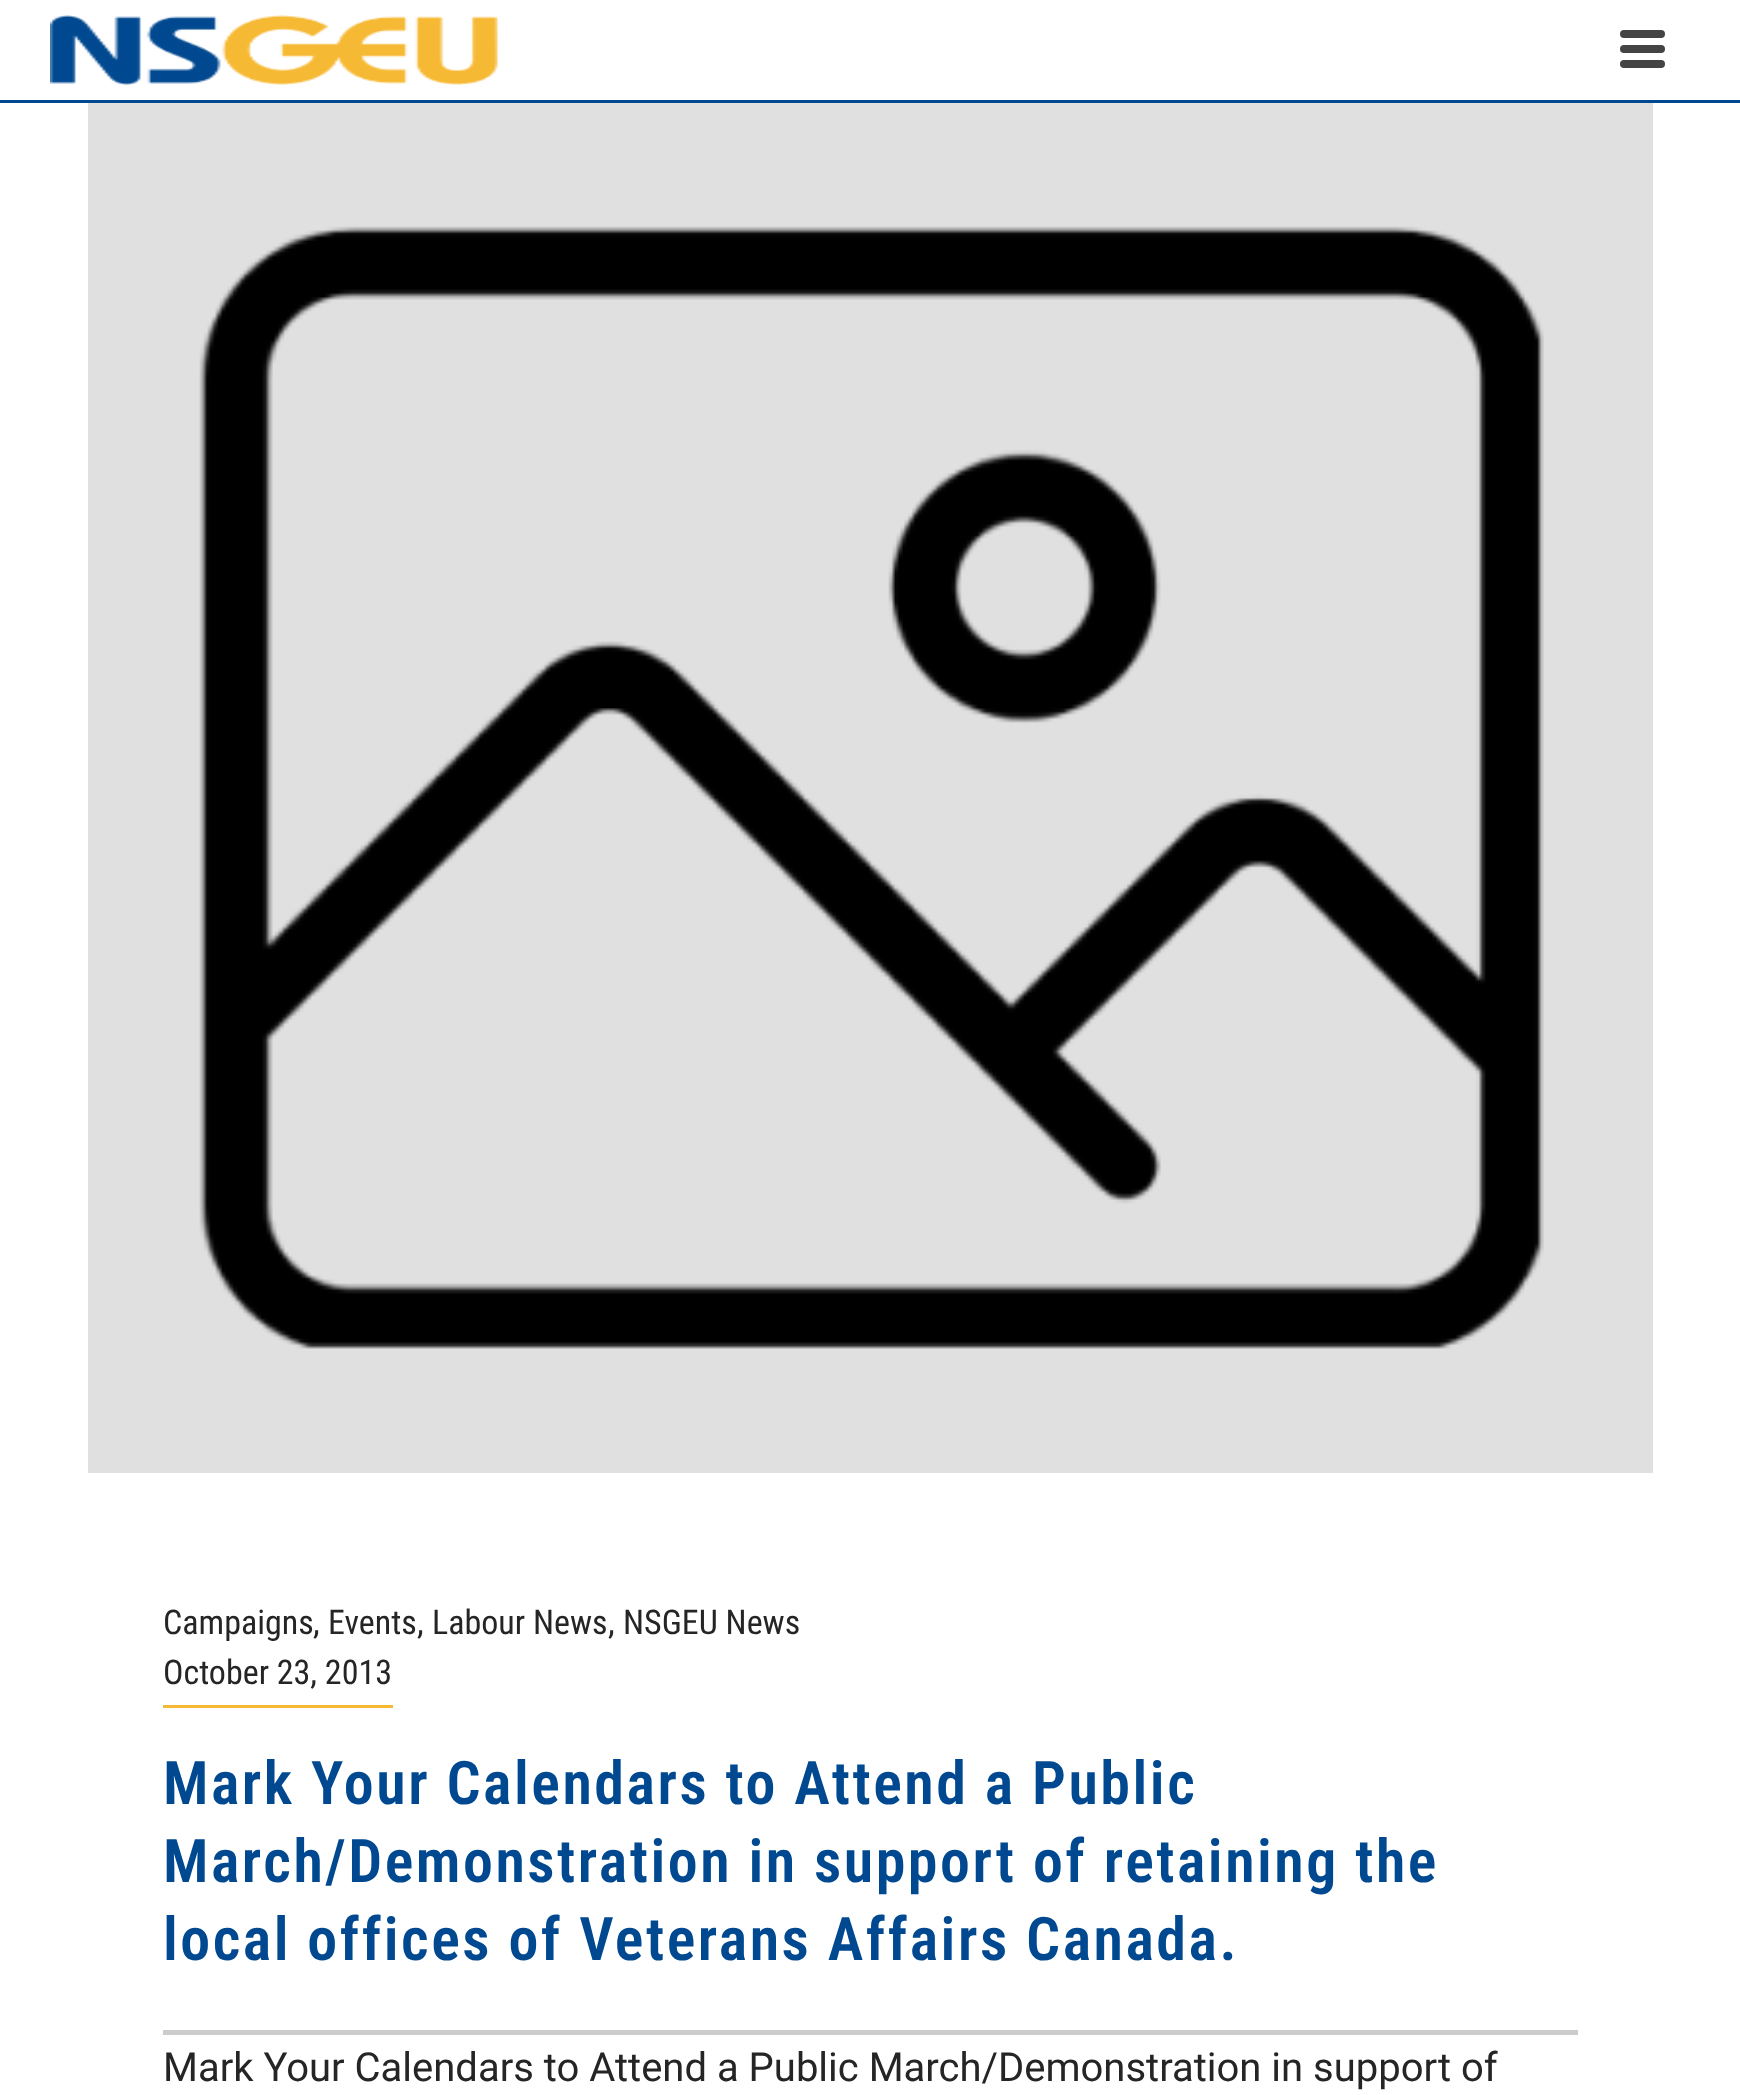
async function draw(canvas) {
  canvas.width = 1740;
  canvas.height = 2095;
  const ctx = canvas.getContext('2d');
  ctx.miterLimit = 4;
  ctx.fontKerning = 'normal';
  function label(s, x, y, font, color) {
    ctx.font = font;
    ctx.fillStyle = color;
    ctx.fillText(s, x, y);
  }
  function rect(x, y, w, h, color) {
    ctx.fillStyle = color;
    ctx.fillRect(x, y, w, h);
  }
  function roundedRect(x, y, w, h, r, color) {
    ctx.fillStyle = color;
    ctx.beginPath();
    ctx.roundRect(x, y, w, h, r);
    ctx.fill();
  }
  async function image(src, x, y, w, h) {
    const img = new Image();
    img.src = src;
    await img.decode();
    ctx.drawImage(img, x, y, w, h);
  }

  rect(0, 0, 1740, 2095, '#fff');
  rect(0, 100, 1740, 3, '#004990');
  await image('assets/img1.png', 50, 15, 448, 70);
  roundedRect(1620, 30, 45, 8, 4, '#444');
  roundedRect(1620, 45, 45, 8, 4, '#444');
  roundedRect(1620, 60, 45, 8, 4, '#444');
  rect(88, 103, 1565, 1370, '#e0e0e0');
  await image('assets/img2.png', 199, 226, 1345, 1123);
  label('Campaigns', 163, 1634, '34px Roboto Condensed', '#252525');
  label(',', 313, 1634, '34px Roboto', '#252525');
  label('Events', 328, 1634, '34px Roboto Condensed', '#252525');
  label(',', 417, 1634, '34px Roboto', '#252525');
  label('Labour News', 432, 1634, '34px Roboto Condensed', '#252525');
  label(',', 608, 1634, '34px Roboto', '#252525');
  label('NSGEU News', 623, 1634, '34px Roboto Condensed', '#252525');
  label('October 23, 2013', 163, 1684, '34px Roboto Condensed', '#252525');
  rect(163, 1705, 230, 3, '#f6b934');
  ctx.letterSpacing = '2.5px';
  label('Mark Your Calendars to Attend a Public', 163, 1804, '600 60px Roboto Condensed', '#004990');
  label('March/Demonstration in support of retaining the', 163, 1882, '600 60px Roboto Condensed', '#004990');
  label('local offices of Veterans Affairs Canada.', 163, 1960, '600 60px Roboto Condensed', '#004990');
  rect(163, 2030, 1415, 5, '#ccc');
  ctx.letterSpacing = '0px';
  label('Mark Your Calendars to Attend a Public March/Demonstration in support of', 163, 2081, '40px Roboto', '#252525');
}

draw(document.querySelector('canvas'));
